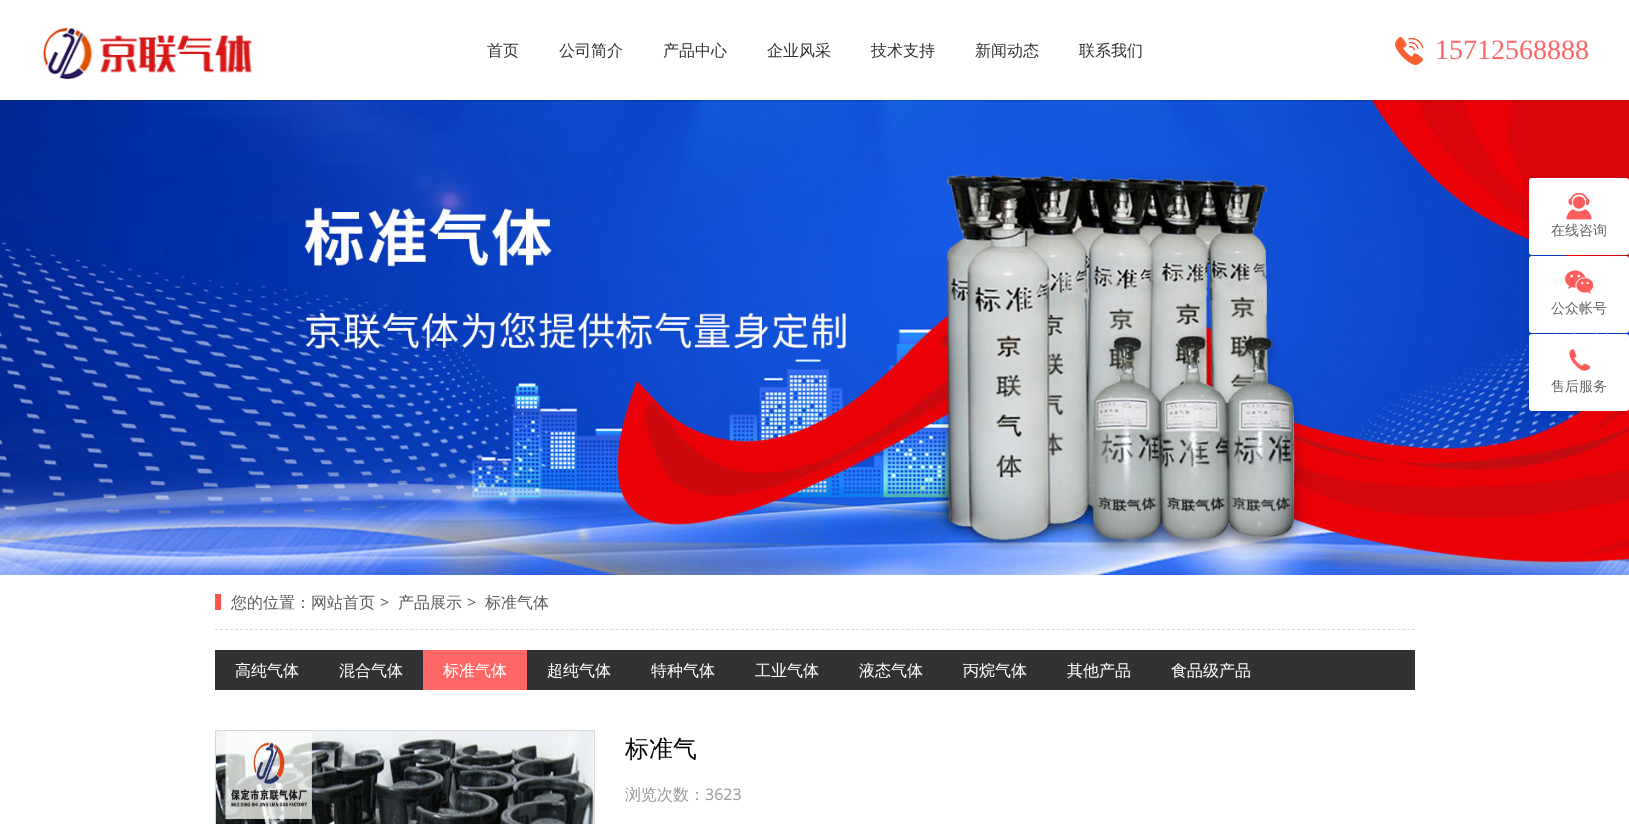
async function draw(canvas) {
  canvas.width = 1629;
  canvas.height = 824;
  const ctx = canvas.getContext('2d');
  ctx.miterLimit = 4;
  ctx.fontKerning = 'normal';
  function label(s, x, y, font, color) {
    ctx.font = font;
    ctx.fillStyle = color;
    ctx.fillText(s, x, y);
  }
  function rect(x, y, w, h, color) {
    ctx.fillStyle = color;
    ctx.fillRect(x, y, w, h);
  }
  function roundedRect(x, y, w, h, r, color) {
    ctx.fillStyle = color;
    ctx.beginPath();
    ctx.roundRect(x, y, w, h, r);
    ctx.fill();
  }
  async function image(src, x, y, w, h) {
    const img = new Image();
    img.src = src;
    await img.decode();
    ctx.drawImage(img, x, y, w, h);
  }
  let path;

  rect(0, 0, 1629, 824, '#fff');
  await image('assets/img3.png', 0, 100, 1629, 475);
  ctx.save();
  ctx.beginPath();
  ctx.rect(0, 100, 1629, 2);
  ctx.clip();
  ctx.fillStyle = '#0000004d';
  ctx.filter = 'blur(1.5px)';
  ctx.beginPath();
  ctx.rect(0, 0, 1629, 100);
  ctx.fill();
  ctx.filter = 'none';
  ctx.restore();
  await image('assets/img1.png', 42, 27, 210, 53);
  label('首页', 487, 56, '500 16px WenQuanYi Zen Hei', '#323235');
  label('公司简介', 559, 56, '500 16px WenQuanYi Zen Hei', '#323235');
  label('产品中心', 663, 56, '500 16px WenQuanYi Zen Hei', '#323235');
  label('企业风采', 767, 56, '500 16px WenQuanYi Zen Hei', '#323235');
  label('技术支持', 871, 56, '500 16px WenQuanYi Zen Hei', '#323235');
  label('新闻动态', 975, 56, '500 16px WenQuanYi Zen Hei', '#323235');
  label('联系我们', 1079, 56, '500 16px WenQuanYi Zen Hei', '#323235');
  await image('assets/img2.png', 1395, 37, 28, 28);
  label('15712568888', 1435, 59, '28px Liberation Serif', '#f66');
  ctx.save();
  path = new Path2D('M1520 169H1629V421H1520ZM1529 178H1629V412H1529Z');
  ctx.clip(path, 'evenodd');
  ctx.fillStyle = '#0000001a';
  ctx.filter = 'blur(2.5px)';
  ctx.beginPath();
  ctx.rect(1529, 178, 100, 234);
  ctx.fill();
  ctx.filter = 'none';
  ctx.restore();
  roundedRect(1529, 178, 100, 77, 3, '#fff');
  await image('assets/img4.png', 1566, 193, 26, 27);
  label('在线咨询', 1551, 235, '500 14px WenQuanYi Zen Hei', '#666');
  roundedRect(1529, 256, 100, 77, 3, '#fff');
  await image('assets/img5.png', 1565, 270, 28, 24);
  label('公众帐号', 1551, 313, '500 14px WenQuanYi Zen Hei', '#666');
  roundedRect(1529, 334, 100, 77, 3, '#fff');
  await image('assets/img6.png', 1569, 349, 21, 22);
  label('售后服务', 1551, 391, '500 14px WenQuanYi Zen Hei', '#666');
  path = new Path2D('M215 629.5H1415');
  ctx.strokeStyle = '#d7d7d7';
  ctx.setLineDash([3, 2.01]);
  ctx.stroke(path);
  rect(215, 594, 6, 16, '#ff544d');
  label('您的位置：网站首页', 231, 608, '500 16px WenQuanYi Zen Hei', '#5c5c5c');
  label('>', 380, 608, '16px Open Sans', '#5c5c5c');
  label('产品展示', 398, 608, '500 16px WenQuanYi Zen Hei', '#5c5c5c');
  label('>', 467, 608, '16px Open Sans', '#5c5c5c');
  label('标准气体', 485, 608, '500 16px WenQuanYi Zen Hei', '#5c5c5c');
  rect(215, 650, 1200, 40, '#323235');
  label('高纯气体', 235, 676, '500 16px WenQuanYi Zen Hei', '#fff');
  label('混合气体', 339, 676, '500 16px WenQuanYi Zen Hei', '#fff');
  rect(423, 650, 104, 40, '#f66');
  label('标准气体', 443, 676, '500 16px WenQuanYi Zen Hei', '#fff');
  label('超纯气体', 547, 676, '500 16px WenQuanYi Zen Hei', '#fff');
  label('特种气体', 651, 676, '500 16px WenQuanYi Zen Hei', '#fff');
  label('工业气体', 755, 676, '500 16px WenQuanYi Zen Hei', '#fff');
  label('液态气体', 859, 676, '500 16px WenQuanYi Zen Hei', '#fff');
  label('丙烷气体', 963, 676, '500 16px WenQuanYi Zen Hei', '#fff');
  label('其他产品', 1067, 676, '500 16px WenQuanYi Zen Hei', '#fff');
  label('食品级产品', 1171, 676, '500 16px WenQuanYi Zen Hei', '#fff');
  ctx.strokeStyle = '#d8d8d8';
  ctx.setLineDash([]);
  ctx.strokeRect(215.5, 730.5, 379, 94);
  await image('assets/img7.png', 216, 731, 378, 93);
  label('标准气', 625, 757, '500 24px WenQuanYi Zen Hei', '#000');
  label('浏览次数：', 625, 800, '500 16px WenQuanYi Zen Hei', '#999');
  label('3623', 705, 800, '16px Open Sans', '#999');
}

draw(document.querySelector('canvas'));
